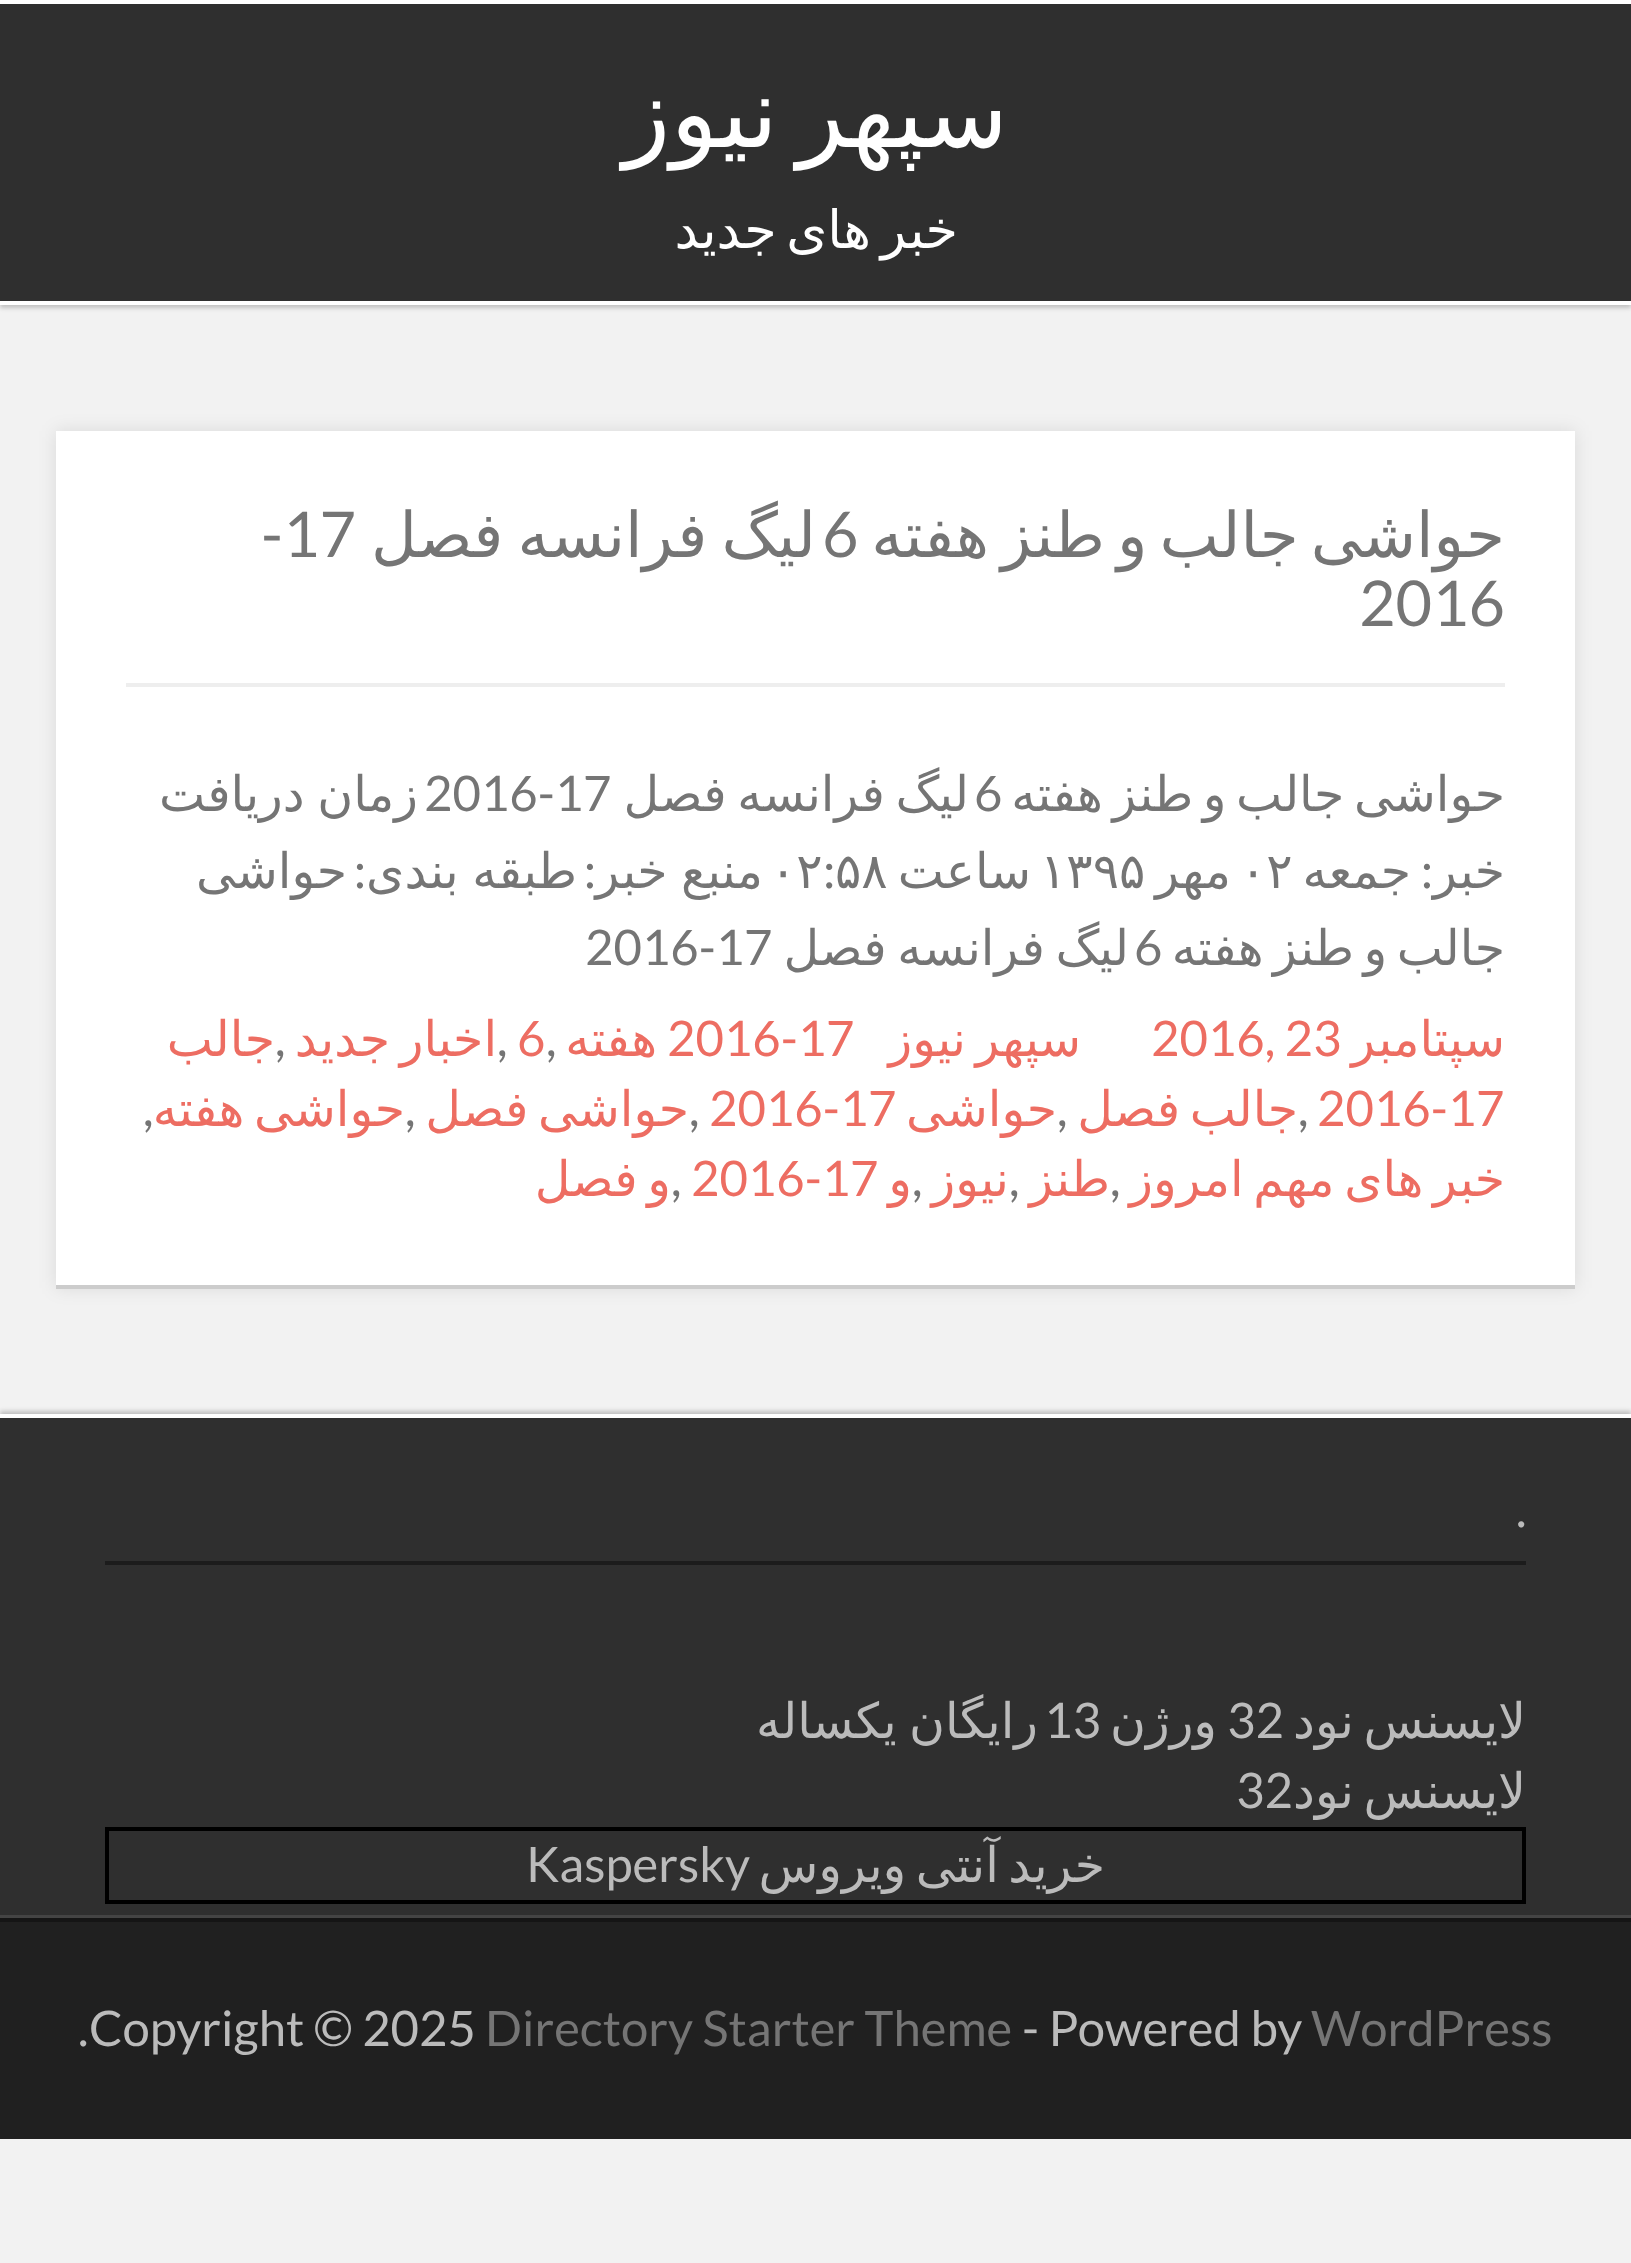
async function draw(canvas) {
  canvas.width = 1631;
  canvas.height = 2263;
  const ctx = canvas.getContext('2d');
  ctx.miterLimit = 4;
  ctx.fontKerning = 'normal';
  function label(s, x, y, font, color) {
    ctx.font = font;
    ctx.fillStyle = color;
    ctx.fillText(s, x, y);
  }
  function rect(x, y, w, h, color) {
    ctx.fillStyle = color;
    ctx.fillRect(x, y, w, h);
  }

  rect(0, 0, 1631, 2263, '#f2f2f2');
  ctx.fillStyle = '#00000033';
  ctx.filter = 'blur(2px)';
  ctx.beginPath();
  ctx.rect(0, 4, 1631, 304);
  ctx.fill();
  ctx.filter = 'none';
  rect(0, 4, 1631, 297, '#2f2f2f');
  rect(0, 0, 1631, 4, '#fff');
  rect(0, 301, 1631, 4, '#fff');
  ctx.wordSpacing = '-12px';
  ctx.direction = 'rtl';
  label('سپهر نیوز', 1008, 147, '98px DejaVu Sans', '#fff');
  ctx.wordSpacing = '-7px';
  label('خبر های جدید', 958, 248, '52.5px DejaVu Sans', '#fff');
  ctx.fillStyle = '#0000001a';
  ctx.filter = 'blur(9px)';
  ctx.beginPath();
  ctx.rect(56, 431, 1519, 857);
  ctx.fill();
  ctx.filter = 'none';
  rect(56, 431, 1519, 854, '#fff');
  rect(56, 1285, 1519, 4, '#ccc');
  rect(126, 683, 1379, 4, '#eee');
  ctx.wordSpacing = '-8px';
  label('حواشی جالب و طنز هفته', 1505, 557, '63px DejaVu Sans', '#757575');
  ctx.wordSpacing = '0px';
  ctx.direction = 'ltr';
  label('6', 822, 557, '63px Lato', '#757575');
  ctx.wordSpacing = '-6px';
  ctx.direction = 'rtl';
  label('لیگ فرانسه فصل', 816, 557, '63px DejaVu Sans', '#757575');
  ctx.wordSpacing = '0px';
  ctx.direction = 'ltr';
  label('-17', 261, 557, '63px Lato', '#757575');
  label('2016', 1359, 626, '63px Lato', '#757575');
  ctx.wordSpacing = '-6px';
  ctx.direction = 'rtl';
  label('حواشی جالب و طنز هفته', 1505, 811, '49px DejaVu Sans', '#757575');
  ctx.wordSpacing = '0px';
  ctx.direction = 'ltr';
  label('6', 974, 811, '49px Lato', '#757575');
  ctx.wordSpacing = '-5px';
  ctx.direction = 'rtl';
  label('لیگ فرانسه فصل', 969, 811, '49px DejaVu Sans', '#757575');
  ctx.wordSpacing = '0px';
  ctx.direction = 'ltr';
  label('2016-17', 424, 811, '49px Lato', '#757575');
  ctx.wordSpacing = '-3px';
  ctx.direction = 'rtl';
  label('زمان دریافت', 418, 811, '49px DejaVu Sans', '#757575');
  ctx.wordSpacing = '0px';
  label('خبر', 1505, 888, '49px DejaVu Sans', '#757575');
  label(':', 1433, 888, '49px Lato', '#757575');
  label('جمعه', 1411, 888, '49px DejaVu Sans', '#757575');
  ctx.direction = 'ltr';
  label('۰۲', 1240, 888, '49px DejaVu Sans', '#757575');
  ctx.direction = 'rtl';
  label('مهر', 1231, 888, '49px DejaVu Sans', '#757575');
  ctx.direction = 'ltr';
  label('۱۳۹۵', 1040, 888, '49px DejaVu Sans', '#757575');
  ctx.direction = 'rtl';
  label('ساعت', 1031, 888, '49px DejaVu Sans', '#757575');
  ctx.direction = 'ltr';
  label('۵۸', 835, 888, '49px DejaVu Sans', '#757575');
  label(':', 823, 888, '49px Lato', '#757575');
  label('۰۲', 770, 888, '49px DejaVu Sans', '#757575');
  ctx.wordSpacing = '-2px';
  ctx.direction = 'rtl';
  label('منبع خبر', 763, 888, '49px DejaVu Sans', '#757575');
  ctx.wordSpacing = '0px';
  label(':', 596, 888, '49px Lato', '#757575');
  ctx.wordSpacing = '-2px';
  label('طبقه بندی', 577, 888, '49px DejaVu Sans', '#757575');
  ctx.wordSpacing = '0px';
  label(':', 366, 888, '49px Lato', '#757575');
  label('حواشی', 347, 888, '49px DejaVu Sans', '#757575');
  ctx.wordSpacing = '-6px';
  label('جالب و طنز هفته', 1505, 965, '49px DejaVu Sans', '#757575');
  ctx.wordSpacing = '0px';
  ctx.direction = 'ltr';
  label('6', 1134, 965, '49px Lato', '#757575');
  ctx.wordSpacing = '-5px';
  ctx.direction = 'rtl';
  label('لیگ فرانسه فصل', 1129, 965, '49px DejaVu Sans', '#757575');
  ctx.wordSpacing = '0px';
  ctx.direction = 'ltr';
  label('2016-17', 585, 965, '49px Lato', '#757575');
  ctx.direction = 'rtl';
  label('سپتامبر', 1505, 1056, '49px DejaVu Sans', '#ed6d62');
  ctx.direction = 'ltr';
  label('2016, 23', 1151, 1056, '49px Lato', '#ed6d62');
  ctx.wordSpacing = '-6px';
  ctx.direction = 'rtl';
  label('سپهر نیوز', 1081, 1056, '49px DejaVu Sans', '#ed6d62');
  ctx.wordSpacing = '0px';
  ctx.direction = 'ltr';
  label('2016-17', 667, 1056, '49px Lato', '#ed6d62');
  ctx.direction = 'rtl';
  label('هفته', 657, 1056, '49px DejaVu Sans', '#ed6d62');
  ctx.direction = 'ltr';
  label(',', 546, 1056, '49px Lato', '#757575');
  label('6', 517, 1056, '49px Lato', '#ed6d62');
  label(',', 497, 1056, '49px Lato', '#757575');
  ctx.wordSpacing = '-6px';
  ctx.direction = 'rtl';
  label('اخبار جدید', 497, 1056, '49px DejaVu Sans', '#ed6d62');
  ctx.wordSpacing = '0px';
  ctx.direction = 'ltr';
  label(',', 275, 1056, '49px Lato', '#757575');
  ctx.direction = 'rtl';
  label('جالب', 275, 1056, '49px DejaVu Sans', '#ed6d62');
  ctx.direction = 'ltr';
  label('2016-17', 1317, 1126, '49px Lato', '#ed6d62');
  label(',', 1298, 1126, '49px Lato', '#757575');
  ctx.wordSpacing = '-6px';
  ctx.direction = 'rtl';
  label('جالب فصل', 1298, 1126, '49px DejaVu Sans', '#ed6d62');
  ctx.wordSpacing = '0px';
  ctx.direction = 'ltr';
  label(',', 1057, 1126, '49px Lato', '#757575');
  ctx.direction = 'rtl';
  label('حواشی', 1057, 1126, '49px DejaVu Sans', '#ed6d62');
  ctx.direction = 'ltr';
  label('2016-17', 709, 1126, '49px Lato', '#ed6d62');
  label(',', 689, 1126, '49px Lato', '#757575');
  ctx.wordSpacing = '-6px';
  ctx.direction = 'rtl';
  label('حواشی فصل', 689, 1126, '49px DejaVu Sans', '#ed6d62');
  ctx.wordSpacing = '0px';
  ctx.direction = 'ltr';
  label(',', 405, 1126, '49px Lato', '#757575');
  ctx.wordSpacing = '-6px';
  ctx.direction = 'rtl';
  label('حواشی هفته', 405, 1126, '49px DejaVu Sans', '#ed6d62');
  ctx.wordSpacing = '0px';
  ctx.direction = 'ltr';
  label(',', 143, 1126, '49px Lato', '#757575');
  ctx.wordSpacing = '-6px';
  ctx.direction = 'rtl';
  label('خبر های مهم امروز', 1505, 1196, '49px DejaVu Sans', '#ed6d62');
  ctx.wordSpacing = '0px';
  ctx.direction = 'ltr';
  label(',', 1110, 1196, '49px Lato', '#757575');
  ctx.direction = 'rtl';
  label('طنز', 1110, 1196, '49px DejaVu Sans', '#ed6d62');
  ctx.direction = 'ltr';
  label(',', 1009, 1196, '49px Lato', '#757575');
  ctx.direction = 'rtl';
  label('نیوز', 1009, 1196, '49px DejaVu Sans', '#ed6d62');
  ctx.direction = 'ltr';
  label(',', 912, 1196, '49px Lato', '#757575');
  ctx.direction = 'rtl';
  label('و', 912, 1196, '49px DejaVu Sans', '#ed6d62');
  ctx.direction = 'ltr';
  label('2016-17', 691, 1196, '49px Lato', '#ed6d62');
  label(',', 671, 1196, '49px Lato', '#757575');
  ctx.wordSpacing = '-6px';
  ctx.direction = 'rtl';
  label('و فصل', 671, 1196, '49px DejaVu Sans', '#ed6d62');
  ctx.fillStyle = '#00000033';
  ctx.filter = 'blur(2px)';
  ctx.beginPath();
  ctx.rect(0, 1411, 1631, 504);
  ctx.fill();
  ctx.filter = 'none';
  rect(0, 1418, 1631, 497, '#2f2f2f');
  rect(0, 1414, 1631, 4, '#fff');
  rect(0, 1915, 1631, 3, '#444');
  rect(105, 1561, 1421, 4, '#00000066');
  ctx.wordSpacing = '0px';
  ctx.direction = 'ltr';
  label('.', 1516, 1527, '49px Lato', '#bbb');
  ctx.wordSpacing = '-6px';
  ctx.direction = 'rtl';
  label('لایسنس نود', 1526, 1738, '49px DejaVu Sans', '#bbb');
  ctx.wordSpacing = '0px';
  ctx.direction = 'ltr';
  label('32', 1227, 1738, '49px Lato', '#bbb');
  ctx.direction = 'rtl';
  label('ورژن', 1217, 1738, '49px DejaVu Sans', '#bbb');
  ctx.direction = 'ltr';
  label('13', 1044, 1738, '49px Lato', '#bbb');
  ctx.wordSpacing = '-3px';
  ctx.direction = 'rtl';
  label('رایگان یکساله', 1038, 1738, '49px DejaVu Sans', '#bbb');
  ctx.wordSpacing = '-6px';
  label('لایسنس نود', 1526, 1808, '49px DejaVu Sans', '#bbb');
  ctx.wordSpacing = '0px';
  ctx.direction = 'ltr';
  label('32', 1236, 1808, '49px Lato', '#bbb');
  ctx.strokeStyle = '#000';
  ctx.lineWidth = 4;
  ctx.strokeRect(107, 1829, 1417, 73);
  ctx.wordSpacing = '-6px';
  ctx.direction = 'rtl';
  label('خرید آنتی ویروس', 1105, 1882, '49px DejaVu Sans', '#bbb');
  ctx.wordSpacing = '0px';
  ctx.direction = 'ltr';
  label('Kaspersky', 526, 1882, '49px Lato', '#bbb');
  rect(0, 1922, 1631, 217, '#202020');
  rect(0, 1918, 1631, 4, '#151515');
  label('WordPress', 1311, 2046, '49px Lato', '#757575');
  label('- Powered by', 1022, 2046, '49px Lato', '#bbb');
  label('Directory Starter Theme', 485, 2046, '49px Lato', '#757575');
  label('Copyright © 2025', 89, 2046, '49px Lato', '#bbb');
  label('.', 78, 2046, '49px Lato', '#bbb');
}

draw(document.querySelector('canvas'));
